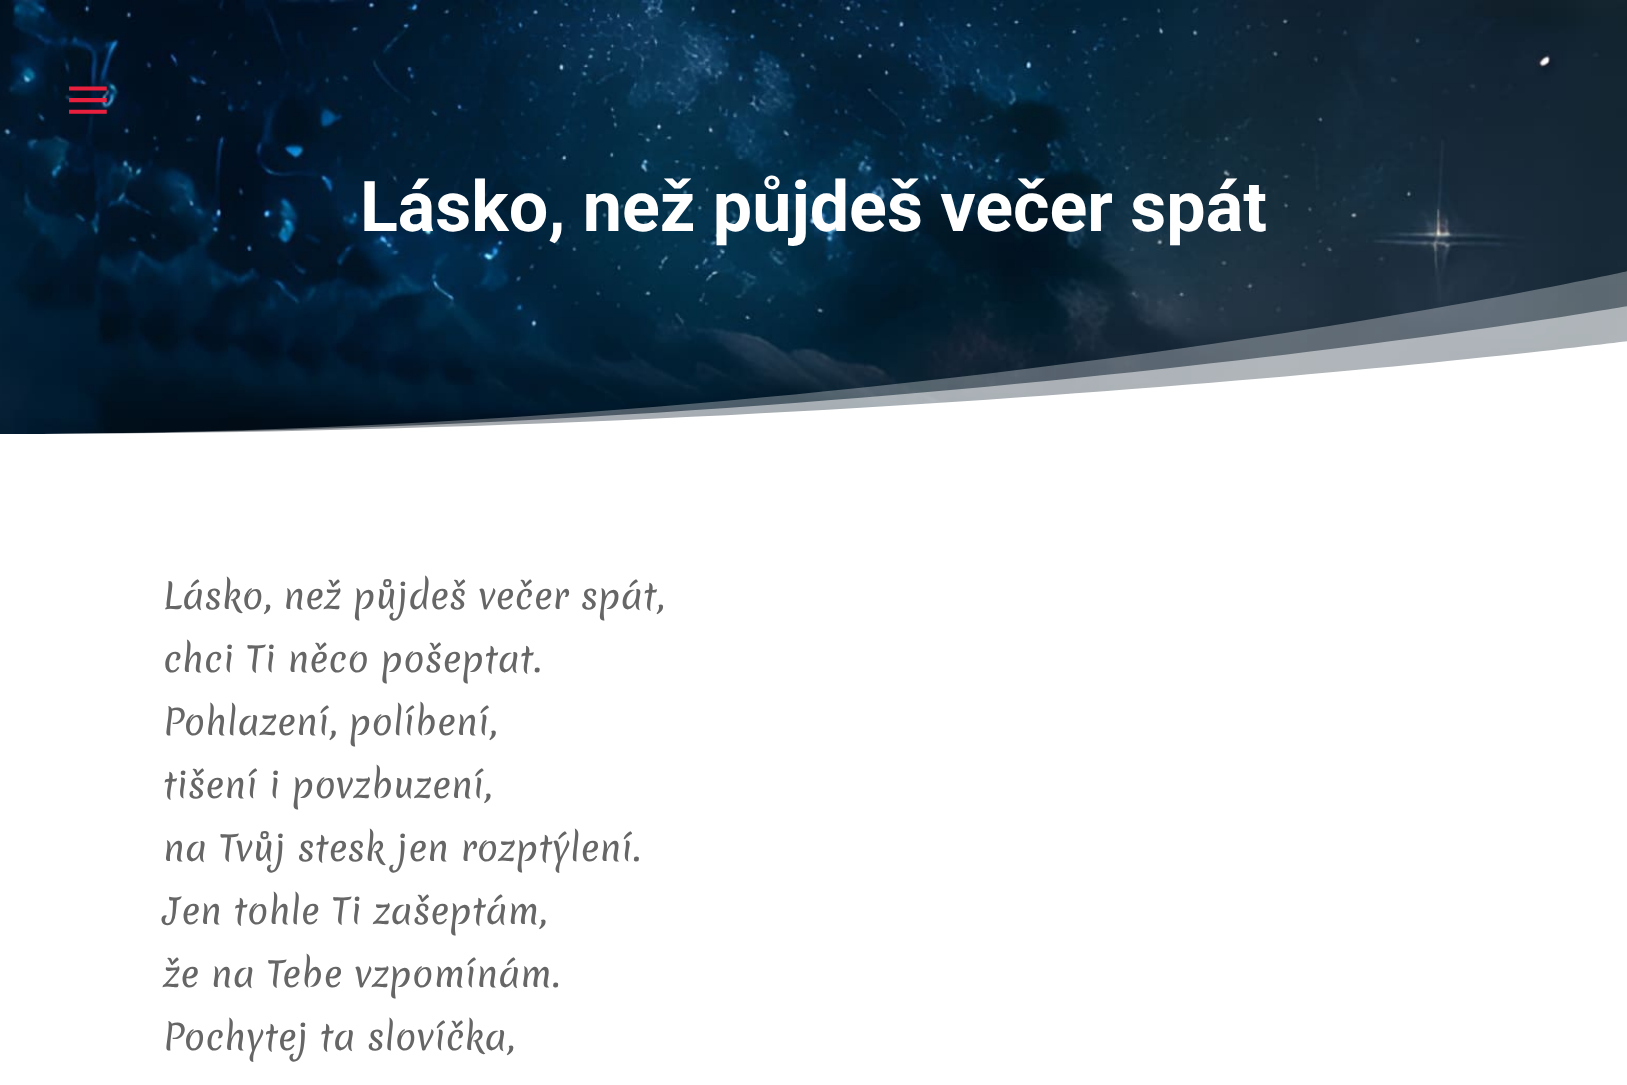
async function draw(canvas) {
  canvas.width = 1627;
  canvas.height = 1085;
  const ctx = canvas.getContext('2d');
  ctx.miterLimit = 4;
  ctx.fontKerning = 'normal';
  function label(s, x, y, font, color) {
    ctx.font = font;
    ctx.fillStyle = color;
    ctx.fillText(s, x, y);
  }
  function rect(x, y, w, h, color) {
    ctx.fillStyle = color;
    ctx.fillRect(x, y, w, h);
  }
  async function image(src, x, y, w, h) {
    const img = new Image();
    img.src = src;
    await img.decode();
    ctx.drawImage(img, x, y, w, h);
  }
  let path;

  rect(0, 0, 1627, 1085, '#fff');
  await image('assets/img1.png', 0, 0, 1627, 434);
  label('≡', 65, 127, '81px Liberation Serif', '#e8203e');
  label('Lásko, než půjdeš večer spát', 360, 231, 'bold 70px Roboto', '#fff');
  ctx.fillStyle = '#ffffff4d';
  path = new Path2D('M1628 434H0C899 434 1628 271 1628 271Z');
  ctx.fill(path);
  ctx.fillStyle = '#ffffff80';
  path = new Path2D('M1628 434H0C899 434 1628 306 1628 306Z');
  ctx.fill(path);
  ctx.fillStyle = '#fff';
  path = new Path2D('M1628 434H0C899 434 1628 341 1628 341Z');
  ctx.fill(path);
  label('Lásko, než půjdeš večer spát,', 163, 609, '35px Merienda', '#666');
  label('chci Ti něco pošeptat.', 163, 672, '35px Merienda', '#666');
  label('Pohlazení, políbení,', 163, 735, '35px Merienda', '#666');
  label('tišení i povzbuzení,', 163, 798, '35px Merienda', '#666');
  label('na Tvůj stesk jen rozptýlení.', 163, 861, '35px Merienda', '#666');
  label('Jen tohle Ti zašeptám,', 163, 924, '35px Merienda', '#666');
  label('že na Tebe vzpomínám.', 163, 987, '35px Merienda', '#666');
  label('Pochytej ta slovíčka,', 163, 1050, '35px Merienda', '#666');
}

draw(document.querySelector('canvas'));
